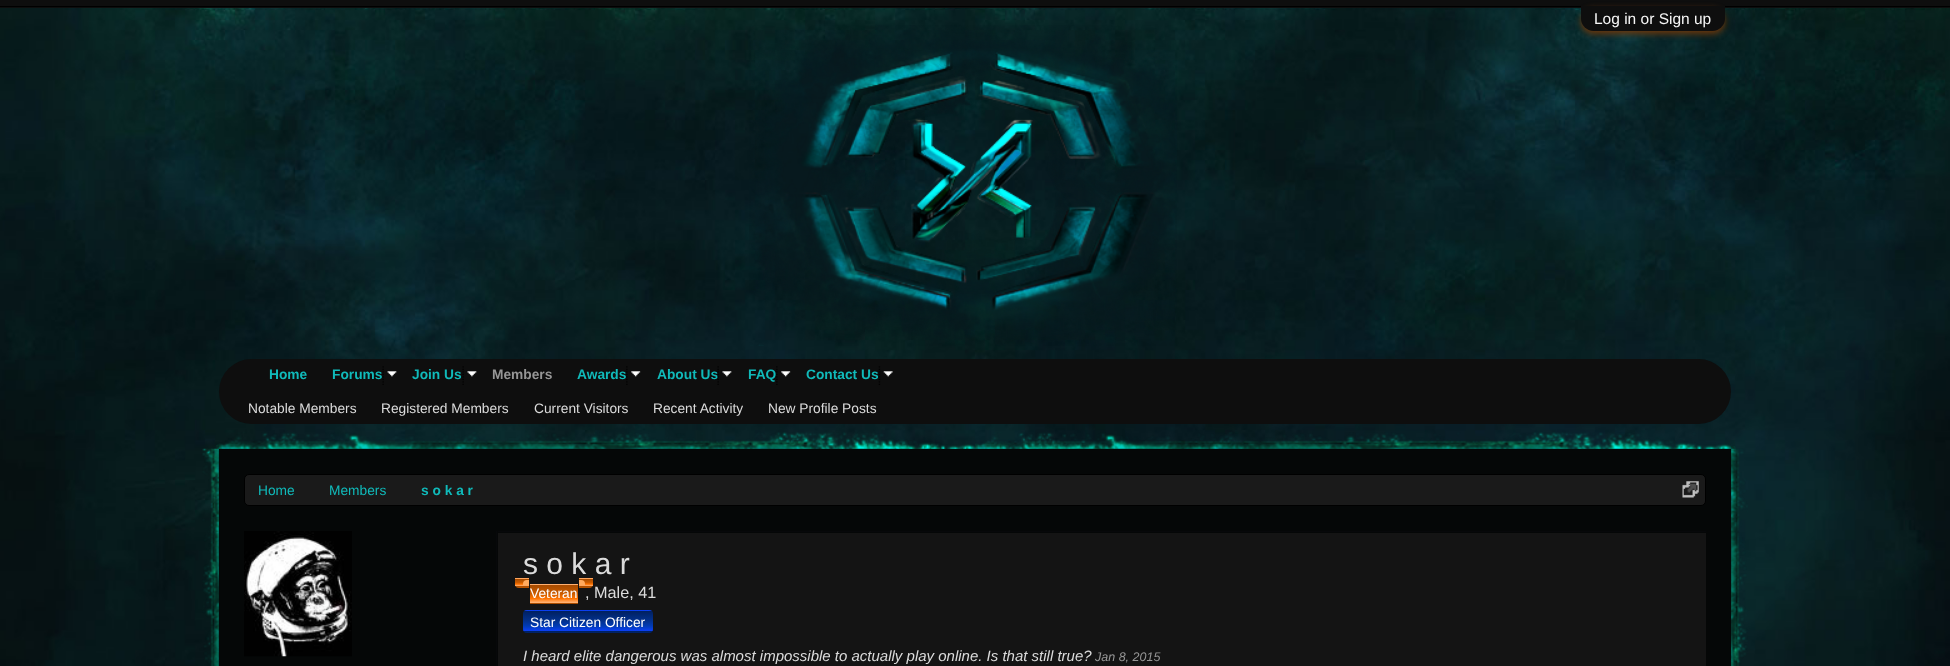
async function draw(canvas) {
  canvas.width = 1950;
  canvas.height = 666;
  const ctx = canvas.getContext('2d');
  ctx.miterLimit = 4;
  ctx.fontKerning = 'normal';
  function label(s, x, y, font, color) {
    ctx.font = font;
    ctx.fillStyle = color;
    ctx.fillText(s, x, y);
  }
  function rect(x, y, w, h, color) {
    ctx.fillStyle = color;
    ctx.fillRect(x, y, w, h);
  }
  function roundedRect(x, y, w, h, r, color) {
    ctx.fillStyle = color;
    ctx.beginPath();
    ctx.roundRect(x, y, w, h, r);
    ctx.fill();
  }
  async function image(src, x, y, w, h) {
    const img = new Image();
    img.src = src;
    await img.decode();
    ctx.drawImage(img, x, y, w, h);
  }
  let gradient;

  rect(0, 0, 1950, 666, '#fff');
  await image('assets/img1.png', 0, 8, 1950, 658);
  rect(0, 0, 1950, 8, '#0e0e0e');
  rect(0, 6, 1950, 1, '#000');
  ctx.fillStyle = '#6a360b';
  ctx.filter = 'blur(3px)';
  ctx.beginPath();
  ctx.roundRect(1581, 9, 144, 25, 12.5);
  ctx.fill();
  ctx.filter = 'none';
  ctx.fillStyle = '#0e0e0e';
  ctx.beginPath();
  ctx.roundRect(1581, 6, 144, 25, [0, 0, 12.5, 12.5]);
  ctx.fill();
  label('Log in or Sign up', 1594, 24, '15.5px Liberation Sans', '#f6f6f6');
  await image('assets/img2.png', 749, 25, 428, 321);
  roundedRect(219, 359, 1512, 65, 32.5, '#0e0e0e');
  label('Members', 492, 379, 'bold 13.75px Liberation Sans', '#969696');
  label('Notable Members', 248, 413, '13.75px Liberation Sans', '#dbdbdb');
  label('Registered Members', 381, 413, '13.75px Liberation Sans', '#dbdbdb');
  label('Current Visitors', 534, 413, '13.75px Liberation Sans', '#dbdbdb');
  label('Recent Activity', 653, 413, '13.75px Liberation Sans', '#dbdbdb');
  label('New Profile Posts', 768, 413, '13.75px Liberation Sans', '#dbdbdb');
  label('Home', 269, 379, 'bold 13.75px Liberation Sans', '#10baba');
  label('Forums', 332, 379, 'bold 13.75px Liberation Sans', '#10baba');
  await image('assets/img3.png', 382, 366, 15, 19);
  label('Join Us', 412, 379, 'bold 13.75px Liberation Sans', '#10baba');
  await image('assets/img4.png', 462, 366, 15, 19);
  label('Awards', 577, 379, 'bold 13.75px Liberation Sans', '#10baba');
  await image('assets/img5.png', 626, 366, 15, 19);
  label('About Us', 657, 379, 'bold 13.75px Liberation Sans', '#10baba');
  await image('assets/img6.png', 717, 366, 15, 19);
  label('FAQ', 748, 379, 'bold 13.75px Liberation Sans', '#10baba');
  await image('assets/img7.png', 776, 366, 15, 19);
  label('Contact Us', 806, 379, 'bold 13.75px Liberation Sans', '#10baba');
  await image('assets/img8.png', 878, 366, 15, 19);
  await image('assets/img9.png', 202, 432, 1546, 234);
  rect(219, 449, 1512, 217, '#050707');
  ctx.fillStyle = '#1a1a1a';
  ctx.beginPath();
  ctx.roundRect(244.5, 474.5, 1461, 31, 4.5);
  ctx.fill();
  ctx.strokeStyle = '#000';
  ctx.stroke();
  label('Home', 258, 495, '13.75px Liberation Sans', '#10baba');
  label('Members', 329, 495, '13.75px Liberation Sans', '#10baba');
  label('s o k a r', 421, 495, 'bold 13.75px Liberation Sans', '#10baba');
  await image('assets/img10.png', 1682, 481, 17, 17);
  await image('assets/img11.png', 244, 531, 108, 126);
  rect(496, 531, 1, 135, '#07080a');
  rect(498, 531, 1208, 1, '#07080a');
  rect(498, 533, 1208, 133, '#141414');
  label('s o k a r', 523, 574, '30px Liberation Sans', '#dbdbdb');
  gradient = ctx.createLinearGradient(523, 571, 523, 579);
  gradient.addColorStop(0, '#a64b00');
  gradient.addColorStop(0.5, '#cc5c00');
  gradient.addColorStop(0.75, '#ff7300');
  gradient.addColorStop(1, '#ffb87f');
  ctx.fillStyle = gradient;
  ctx.fillRect(515, 578, 14, 1);
  gradient = ctx.createLinearGradient(523, 579, 523, 586);
  gradient.addColorStop(0, '#a64b00');
  gradient.addColorStop(0.5, '#cc5c00');
  gradient.addColorStop(0.75, '#ff7300');
  gradient.addColorStop(1, '#ffb87f');
  ctx.fillStyle = gradient;
  ctx.fillRect(515, 579, 14, 7);
  ctx.save();
  ctx.beginPath();
  ctx.roundRect(515, 578, 14, 10, [0, 0, 0, 4]);
  ctx.clip();
  gradient = ctx.createLinearGradient(523, 586, 523, 594);
  gradient.addColorStop(0, '#a64b00');
  gradient.addColorStop(0.5, '#cc5c00');
  gradient.addColorStop(0.75, '#ff7300');
  gradient.addColorStop(1, '#ffb87f');
  ctx.fillStyle = gradient;
  ctx.fillRect(515, 586, 14, 2);
  ctx.restore();
  gradient = ctx.createLinearGradient(554, 568, 554, 585);
  gradient.addColorStop(0, '#a64b00');
  gradient.addColorStop(0.5, '#cc5c00');
  gradient.addColorStop(0.75, '#ff7300');
  gradient.addColorStop(1, '#ffb87f');
  ctx.fillStyle = gradient;
  ctx.fillRect(530, 584, 48, 1);
  gradient = ctx.createLinearGradient(554, 585, 554, 603);
  gradient.addColorStop(0, '#a64b00');
  gradient.addColorStop(0.5, '#cc5c00');
  gradient.addColorStop(0.75, '#ff7300');
  gradient.addColorStop(1, '#ffb87f');
  ctx.fillStyle = gradient;
  ctx.fillRect(530, 585, 48, 18);
  gradient = ctx.createLinearGradient(554, 603, 554, 620);
  gradient.addColorStop(0, '#a64b00');
  gradient.addColorStop(0.5, '#cc5c00');
  gradient.addColorStop(0.75, '#ff7300');
  gradient.addColorStop(1, '#ffb87f');
  ctx.fillStyle = gradient;
  ctx.fillRect(530, 603, 48, 1);
  gradient = ctx.createLinearGradient(585, 571, 585, 579);
  gradient.addColorStop(0, '#a64b00');
  gradient.addColorStop(0.5, '#cc5c00');
  gradient.addColorStop(0.75, '#ff7300');
  gradient.addColorStop(1, '#ffb87f');
  ctx.fillStyle = gradient;
  ctx.fillRect(579, 578, 14, 1);
  gradient = ctx.createLinearGradient(585, 579, 585, 586);
  gradient.addColorStop(0, '#a64b00');
  gradient.addColorStop(0.5, '#cc5c00');
  gradient.addColorStop(0.75, '#ff7300');
  gradient.addColorStop(1, '#ffb87f');
  ctx.fillStyle = gradient;
  ctx.fillRect(579, 579, 14, 7);
  label(', Male, 41', 585, 598, '16.25px Liberation Sans', '#dbdbdb');
  ctx.save();
  ctx.beginPath();
  ctx.roundRect(579, 578, 14, 10, [0, 0, 4, 0]);
  ctx.clip();
  gradient = ctx.createLinearGradient(585, 586, 585, 594);
  gradient.addColorStop(0, '#a64b00');
  gradient.addColorStop(0.5, '#cc5c00');
  gradient.addColorStop(0.75, '#ff7300');
  gradient.addColorStop(1, '#ffb87f');
  ctx.fillStyle = gradient;
  ctx.fillRect(579, 586, 14, 2);
  ctx.restore();
  ctx.fillStyle = '#ffaa5e';
  ctx.beginPath();
  ctx.roundRect(523, 580, 6, 5, [4, 0, 0, 0]);
  ctx.fill();
  ctx.beginPath();
  ctx.roundRect(579, 580, 6, 5, [0, 4, 0, 0]);
  ctx.fill();
  label('Veteran', 530, 598, '13.75px Liberation Sans', '#fff');
  ctx.save();
  ctx.beginPath();
  ctx.roundRect(523, 610, 130, 23, 4);
  ctx.clip();
  gradient = ctx.createLinearGradient(588, 591, 588, 611);
  gradient.addColorStop(0, '#002060');
  gradient.addColorStop(0.5, '#03318e');
  gradient.addColorStop(0.75, '#003bb5');
  gradient.addColorStop(1, '#0c3ff7');
  gradient.addColorStop(1, '#d7d7d7');
  ctx.fillStyle = gradient;
  ctx.fillRect(523, 610, 130, 1);
  gradient = ctx.createLinearGradient(588, 611, 588, 631);
  gradient.addColorStop(0, '#002060');
  gradient.addColorStop(0.5, '#03318e');
  gradient.addColorStop(0.75, '#003bb5');
  gradient.addColorStop(1, '#0c3ff7');
  gradient.addColorStop(1, '#d7d7d7');
  ctx.fillStyle = gradient;
  ctx.fillRect(523, 611, 130, 20);
  gradient = ctx.createLinearGradient(588, 631, 588, 651);
  gradient.addColorStop(0, '#002060');
  gradient.addColorStop(0.5, '#03318e');
  gradient.addColorStop(0.75, '#003bb5');
  gradient.addColorStop(1, '#0c3ff7');
  gradient.addColorStop(1, '#d7d7d7');
  ctx.fillStyle = gradient;
  ctx.fillRect(523, 631, 130, 2);
  ctx.restore();
  label('Star Citizen Officer', 530, 627, '13.75px Liberation Sans', '#fff');
  label('I heard elite dangerous was almost impossible to actually play online. Is that still true?', 523, 661, 'italic 15px Liberation Sans', '#dbdbdb');
  label('Jan 8, 2015', 1095, 661, 'italic 12.5px Liberation Sans', '#969696');
}

draw(document.querySelector('canvas'));
